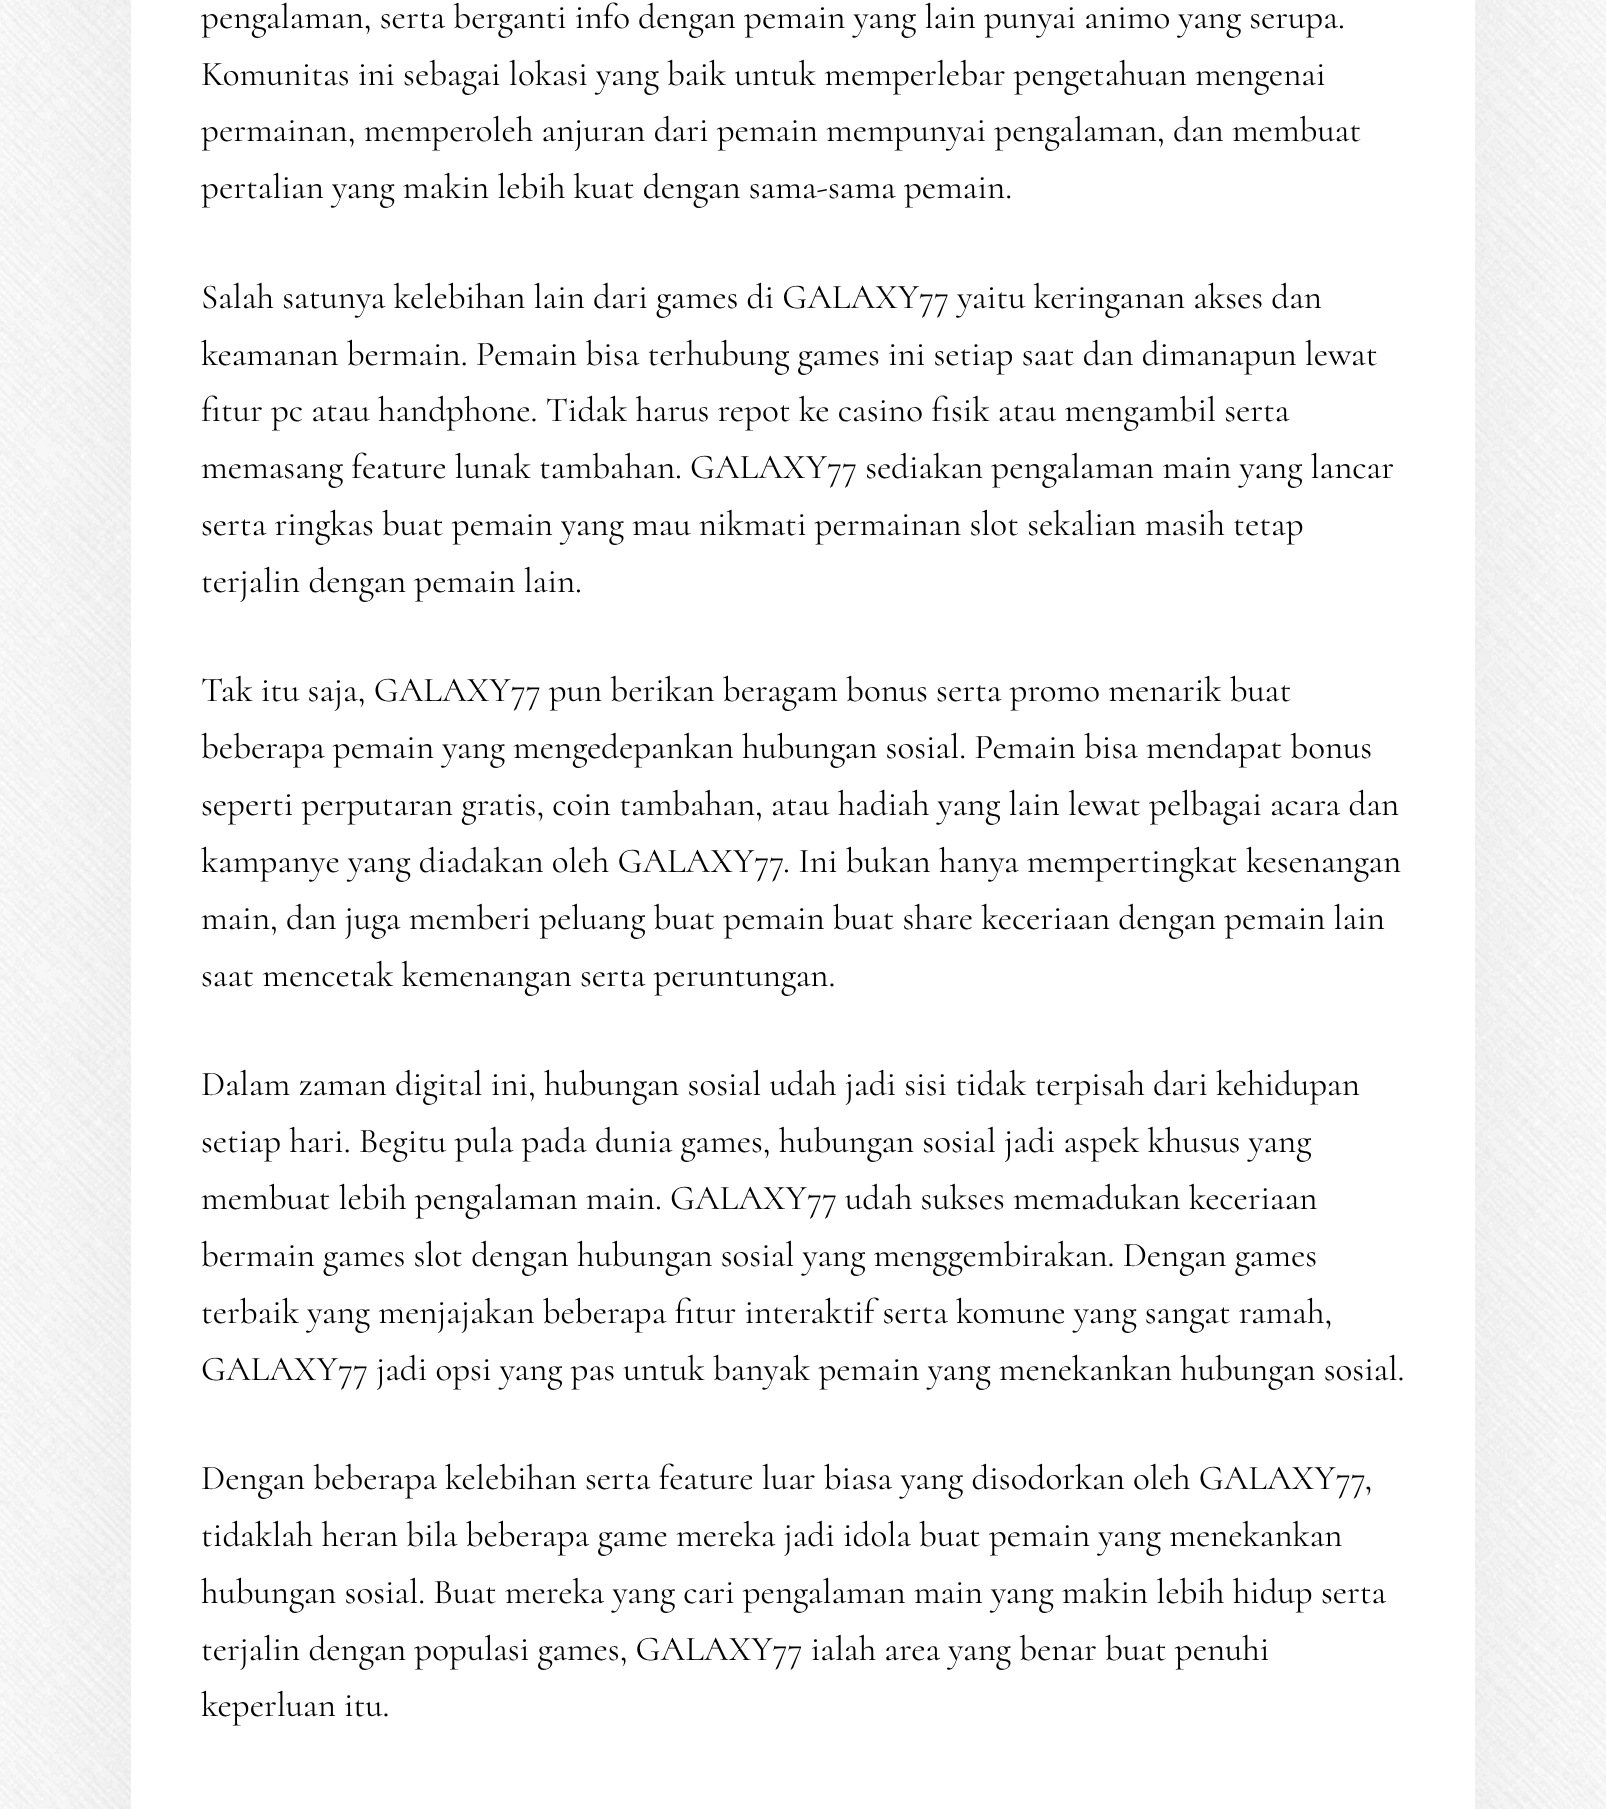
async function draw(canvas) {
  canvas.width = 1606;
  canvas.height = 1809;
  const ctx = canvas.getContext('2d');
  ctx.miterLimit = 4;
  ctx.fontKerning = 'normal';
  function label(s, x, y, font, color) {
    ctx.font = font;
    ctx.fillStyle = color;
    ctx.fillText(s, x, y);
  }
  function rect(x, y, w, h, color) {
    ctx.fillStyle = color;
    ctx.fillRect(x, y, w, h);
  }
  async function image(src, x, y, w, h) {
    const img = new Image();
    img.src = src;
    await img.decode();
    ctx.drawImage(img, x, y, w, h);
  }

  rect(0, 0, 1606, 1809, '#fff');
  await image('assets/img1.png', 0, 0, 1606, 1809);
  ctx.fillStyle = '#0000000d';
  ctx.filter = 'blur(70px)';
  ctx.beginPath();
  ctx.rect(131, -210, 1344, 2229);
  ctx.fill();
  ctx.filter = 'none';
  rect(131, 0, 1344, 1809, '#fff');
  label('pengalaman, serta berganti info dengan pemain yang lain punyai animo yang serupa.', 201, 28, '35px Cormorant', '#000');
  label('Komunitas ini sebagai lokasi yang baik untuk memperlebar pengetahuan mengenai', 201, 85, '35px Cormorant', '#000');
  label('permainan, memperoleh anjuran dari pemain mempunyai pengalaman, dan membuat', 201, 141, '35px Cormorant', '#000');
  label('pertalian yang makin lebih kuat dengan sama-sama pemain.', 201, 198, '35px Cormorant', '#000');
  label('Salah satunya kelebihan lain dari games di GALAXY77 yaitu keringanan akses dan', 201, 308, '35px Cormorant', '#000');
  label('keamanan bermain. Pemain bisa terhubung games ini setiap saat dan dimanapun lewat', 201, 365, '35px Cormorant', '#000');
  label('fitur pc atau handphone. Tidak harus repot ke casino fisik atau mengambil serta', 201, 421, '35px Cormorant', '#000');
  label('memasang feature lunak tambahan. GALAXY77 sediakan pengalaman main yang lancar', 201, 478, '35px Cormorant', '#000');
  label('serta ringkas buat pemain yang mau nikmati permainan slot sekalian masih tetap', 201, 535, '35px Cormorant', '#000');
  label('terjalin dengan pemain lain.', 201, 592, '35px Cormorant', '#000');
  label('Tak itu saja, GALAXY77 pun berikan beragam bonus serta promo menarik buat', 201, 701, '35px Cormorant', '#000');
  label('beberapa pemain yang mengedepankan hubungan sosial. Pemain bisa mendapat bonus', 201, 758, '35px Cormorant', '#000');
  label('seperti perputaran gratis, coin tambahan, atau hadiah yang lain lewat pelbagai acara dan', 201, 815, '35px Cormorant', '#000');
  label('kampanye yang diadakan oleh GALAXY77. Ini bukan hanya mempertingkat kesenangan', 201, 872, '35px Cormorant', '#000');
  label('main, dan juga memberi peluang buat pemain buat share keceriaan dengan pemain lain', 201, 929, '35px Cormorant', '#000');
  label('saat mencetak kemenangan serta peruntungan.', 201, 986, '35px Cormorant', '#000');
  label('Dalam zaman digital ini, hubungan sosial udah jadi sisi tidak terpisah dari kehidupan', 201, 1095, '35px Cormorant', '#000');
  label('setiap hari. Begitu pula pada dunia games, hubungan sosial jadi aspek khusus yang', 201, 1152, '35px Cormorant', '#000');
  label('membuat lebih pengalaman main. GALAXY77 udah sukses memadukan keceriaan', 201, 1209, '35px Cormorant', '#000');
  label('bermain games slot dengan hubungan sosial yang menggembirakan. Dengan games', 201, 1266, '35px Cormorant', '#000');
  label('terbaik yang menjajakan beberapa fitur interaktif serta komune yang sangat ramah,', 201, 1323, '35px Cormorant', '#000');
  label('GALAXY77 jadi opsi yang pas untuk banyak pemain yang menekankan hubungan sosial.', 201, 1380, '35px Cormorant', '#000');
  label('Dengan beberapa kelebihan serta feature luar biasa yang disodorkan oleh GALAXY77,', 201, 1489, '35px Cormorant', '#000');
  label('tidaklah heran bila beberapa game mereka jadi idola buat pemain yang menekankan', 201, 1546, '35px Cormorant', '#000');
  label('hubungan sosial. Buat mereka yang cari pengalaman main yang makin lebih hidup serta', 201, 1603, '35px Cormorant', '#000');
  label('terjalin dengan populasi games, GALAXY77 ialah area yang benar buat penuhi', 201, 1660, '35px Cormorant', '#000');
  label('keperluan itu.', 201, 1716, '35px Cormorant', '#000');
}

draw(document.querySelector('canvas'));
